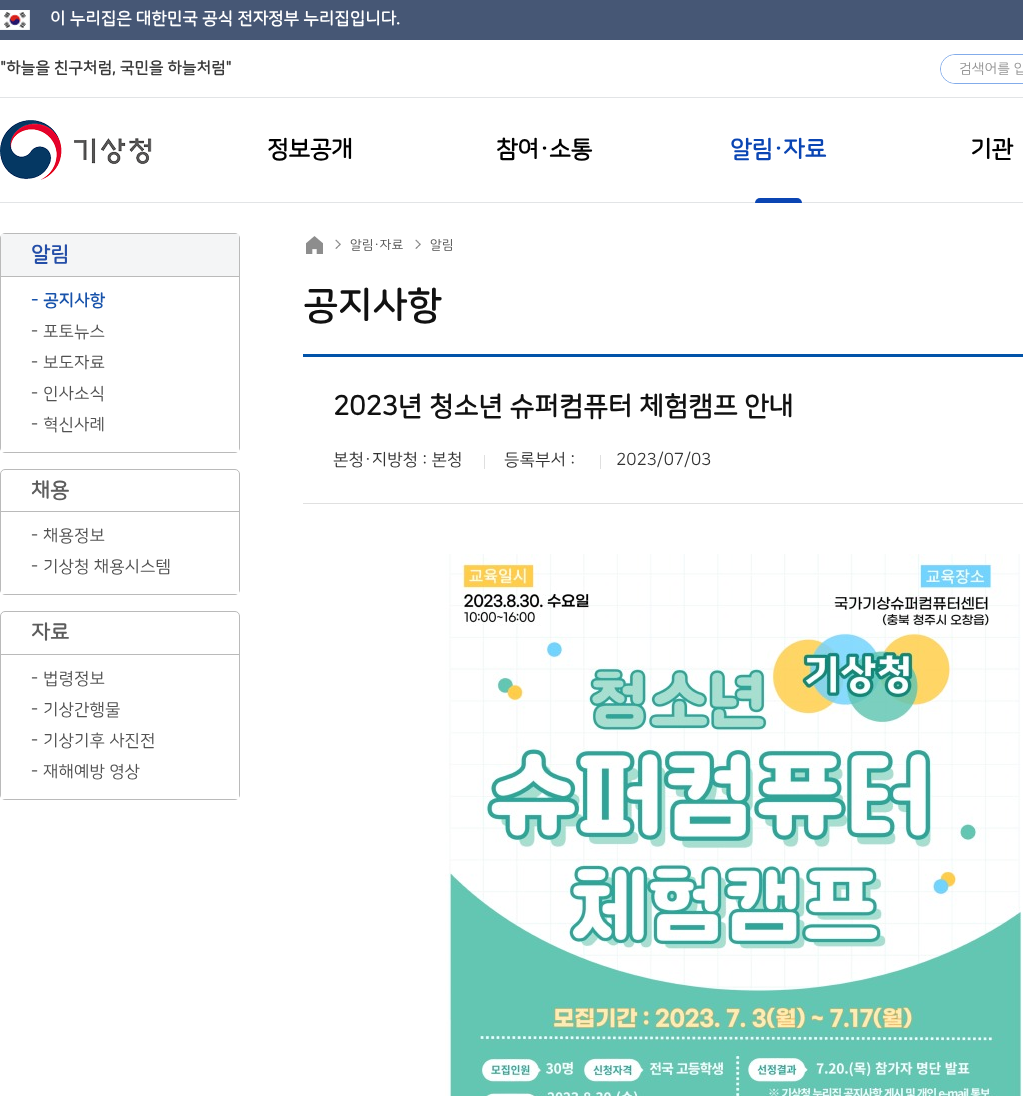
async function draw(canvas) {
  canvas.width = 1023;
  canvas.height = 1096;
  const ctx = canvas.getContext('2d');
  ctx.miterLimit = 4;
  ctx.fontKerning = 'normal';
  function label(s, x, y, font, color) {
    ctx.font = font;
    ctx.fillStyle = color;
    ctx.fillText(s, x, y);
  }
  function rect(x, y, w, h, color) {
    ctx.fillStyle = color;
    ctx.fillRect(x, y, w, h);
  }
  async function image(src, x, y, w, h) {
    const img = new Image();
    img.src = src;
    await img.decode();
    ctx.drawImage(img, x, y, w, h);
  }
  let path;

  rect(0, 0, 1023, 1096, '#fff');
  rect(0, 0, 1023, 40, '#465775');
  await image('assets/img1.png', 0, 10, 30, 20);
  label('이 누리집은 대한민국 공식 전자정부 누리집입니다.', 50, 24, 'bold 17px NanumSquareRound', '#fff');
  label('"하늘을 친구처럼, 국민을 하늘처럼"', 0, 73, 'bold 16px NanumSquareRound', '#3a3a3a');
  ctx.beginPath();
  ctx.roundRect(940.5, 54.5, 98, 29, 14.5);
  ctx.strokeStyle = '#83acea';
  ctx.stroke();
  ctx.fillStyle = '#fff';
  path = new Path2D('M955 55H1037V83H955C947.5 83 941 76.5 941 69C941 61.5 947.5 55 955 55Z');
  ctx.fill(path);
  label('검색어를 입', 959, 73, '14px NanumSquareRound', '#969696');
  rect(0, 97, 1023, 1, '#e2e4e6');
  rect(0, 202, 1023, 1, '#e2e4e6');
  await image('assets/img2.png', 0, 120, 152, 60);
  ctx.letterSpacing = '-0.5px';
  label('정보공개', 267, 157, 'bold 24px NanumSquareRound', '#000');
  label('참여·소통', 496, 157, 'bold 24px NanumSquareRound', '#000');
  label('알림·자료', 730, 157, 'bold 24px NanumSquareRound', '#0a45b3');
  ctx.beginPath();
  ctx.roundRect(755, 198, 47, 5, [5, 5, 0, 0]);
  ctx.fill();
  label('기관', 970, 157, 'bold 24px NanumSquareRound', '#000');
  ctx.beginPath();
  ctx.roundRect(0.5, 233.5, 239, 219, 4.5);
  ctx.strokeStyle = '#bababa';
  ctx.stroke();
  rect(1, 234, 238, 42, '#f4f5f6');
  rect(1, 276, 238, 1, '#bababa');
  ctx.letterSpacing = '0px';
  label('알림', 31, 261, 'bold 21px NanumSquareRound', '#244ea8');
  rect(1, 448, 238, 4, '#fff');
  label('-', 31, 306, 'bold 17px NanumSquareRound', '#1853ab');
  label('공지사항', 43, 306, 'bold 17px NanumSquareRound', '#1853ab');
  label('-', 31, 337, '17px NanumSquareRound', '#525252');
  label('포토뉴스', 43, 337, '17px NanumSquareRound', '#525252');
  label('-', 31, 368, '17px NanumSquareRound', '#525252');
  label('보도자료', 43, 368, '17px NanumSquareRound', '#525252');
  label('-', 31, 399, '17px NanumSquareRound', '#525252');
  label('인사소식', 43, 399, '17px NanumSquareRound', '#525252');
  label('-', 31, 430, '17px NanumSquareRound', '#525252');
  label('혁신사례', 43, 430, '17px NanumSquareRound', '#525252');
  ctx.beginPath();
  ctx.roundRect(0.5, 469.5, 239, 125, 4.5);
  ctx.stroke();
  rect(1, 511, 238, 1, '#bababa');
  label('채용', 31, 497, 'bold 21px NanumSquareRound', '#5d5d5d');
  rect(1, 590, 238, 4, '#fff');
  label('-', 31, 541, '17px NanumSquareRound', '#525252');
  label('채용정보', 43, 541, '17px NanumSquareRound', '#525252');
  label('-', 31, 572, '17px NanumSquareRound', '#525252');
  label('기상청 채용시스템', 43, 572, '17px NanumSquareRound', '#525252');
  ctx.beginPath();
  ctx.roundRect(0.5, 611.5, 239, 188, 4.5);
  ctx.stroke();
  rect(1, 654, 238, 1, '#bababa');
  label('자료', 31, 639, 'bold 21px NanumSquareRound', '#5d5d5d');
  rect(1, 795, 238, 4, '#fff');
  label('-', 31, 684, '17px NanumSquareRound', '#525252');
  label('법령정보', 43, 684, '17px NanumSquareRound', '#525252');
  label('-', 31, 715, '17px NanumSquareRound', '#525252');
  label('기상간행물', 43, 715, '17px NanumSquareRound', '#525252');
  label('-', 31, 746, '17px NanumSquareRound', '#525252');
  label('기상기후 사진전', 43, 746, '17px NanumSquareRound', '#525252');
  label('-', 31, 777, '17px NanumSquareRound', '#525252');
  label('재해예방 영상', 43, 777, '17px NanumSquareRound', '#525252');
  await image('assets/img3.png', 306, 236, 17, 18);
  await image('assets/img4.png', 335, 239, 6, 10);
  label('알림·자료', 350, 249, '13px NanumSquareRound', '#525252');
  await image('assets/img5.png', 415, 239, 6, 10);
  label('알림', 430, 249, '13px NanumSquareRound', '#525252');
  label('공지사항', 303, 318, 'bold 38px NanumSquareRound', '#111');
  rect(303, 354, 720, 3, '#0153a9');
  label('2023년 청소년 슈퍼컴퓨터 체험캠프 안내', 333, 415, 'bold 27px NanumSquareRound', '#111');
  label('본청·지방청 : 본청', 333, 465, '17px NanumSquareRound', '#333');
  rect(484, 455, 1, 14, '#dfdfdf');
  label('등록부서 :', 504, 465, '17px NanumSquareRound', '#333');
  rect(600, 455, 1, 14, '#dfdfdf');
  label('2023/07/03', 616, 465, '17px NanumSquareRound', '#333');
  rect(303, 503, 720, 1, '#e0e0e0');
  await image('assets/img6.png', 445, 554, 577, 542);
}

draw(document.querySelector('canvas'));
